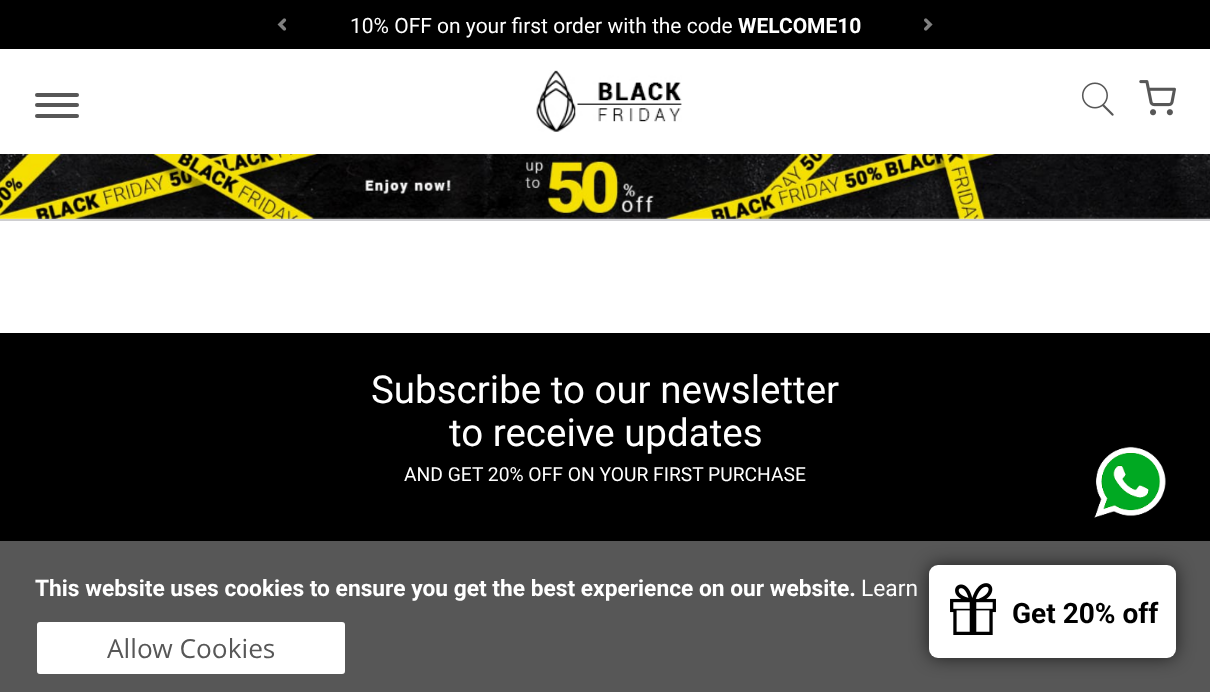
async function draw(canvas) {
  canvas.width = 1210;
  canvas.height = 692;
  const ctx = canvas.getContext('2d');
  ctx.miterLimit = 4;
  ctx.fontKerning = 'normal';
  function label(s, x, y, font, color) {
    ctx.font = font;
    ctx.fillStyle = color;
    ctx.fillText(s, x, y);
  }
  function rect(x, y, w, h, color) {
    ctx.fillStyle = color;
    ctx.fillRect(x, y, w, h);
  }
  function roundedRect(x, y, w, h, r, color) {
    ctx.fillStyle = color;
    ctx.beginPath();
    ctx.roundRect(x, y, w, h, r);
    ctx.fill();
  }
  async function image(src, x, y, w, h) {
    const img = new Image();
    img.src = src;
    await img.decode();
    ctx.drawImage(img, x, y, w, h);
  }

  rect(0, 0, 1210, 692, '#fff');
  rect(0, 219, 1210, 2, '#ceced1');
  rect(0, 0, 1210, 49, '#000');
  await image('assets/img1.png', 277, 18, 10, 13);
  label('10% OFF on your first order with the code', 350, 33, '21px Roboto', '#fff');
  label('WELCOME10', 738, 33, 'bold 21px Roboto', '#fff');
  await image('assets/img2.png', 924, 18, 9, 13);
  roundedRect(35, 93, 44, 4, 2, '#575757');
  roundedRect(35, 103, 44, 4, 2, '#575757');
  roundedRect(35, 114, 44, 4, 2, '#575757');
  await image('assets/img3.png', 536, 70, 146, 62);
  await image('assets/img4.png', 1081, 82, 33, 34);
  await image('assets/img5.png', 1139, 80, 37, 36);
  await image('assets/img6.png', 0, 154, 1210, 65);
  rect(0, 333, 1210, 208, '#000');
  label('Subscribe to our newsletter', 371, 403, '38.5px Roboto', '#fff');
  label('to receive updates', 449, 446, '38.5px Roboto', '#fff');
  label('AND GET 20% OFF ON YOUR FIRST PURCHASE', 404, 481, '19.25px Roboto', '#fff');
  await image('assets/img7.png', 1094, 446, 72, 72);
  rect(0, 541, 1210, 151, '#575757');
  label('This website uses cookies to ensure you get the best experience on our website.', 35, 596, 'bold 22.75px Roboto', '#fff');
  label('Learn', 861, 596, '22.75px Roboto', '#fff');
  ctx.beginPath();
  ctx.roundRect(36, 621, 310, 54, 4);
  ctx.fill();
  ctx.strokeStyle = '#575757';
  ctx.lineWidth = 2;
  ctx.stroke();
  label('Allow Cookies', 107, 658, '26.25px Open Sans', '#575757');
  ctx.fillStyle = '#000000a1';
  ctx.filter = 'blur(9px)';
  ctx.beginPath();
  ctx.roundRect(929, 565, 247, 93, 9);
  ctx.fill();
  ctx.filter = 'none';
  roundedRect(929, 565, 247, 93, 9, '#fff');
  await image('assets/img8.png', 950, 583, 46, 52);
  label('Get 20% off', 1012, 623, 'bold 28px Roboto', '#000');
}

draw(document.querySelector('canvas'));
